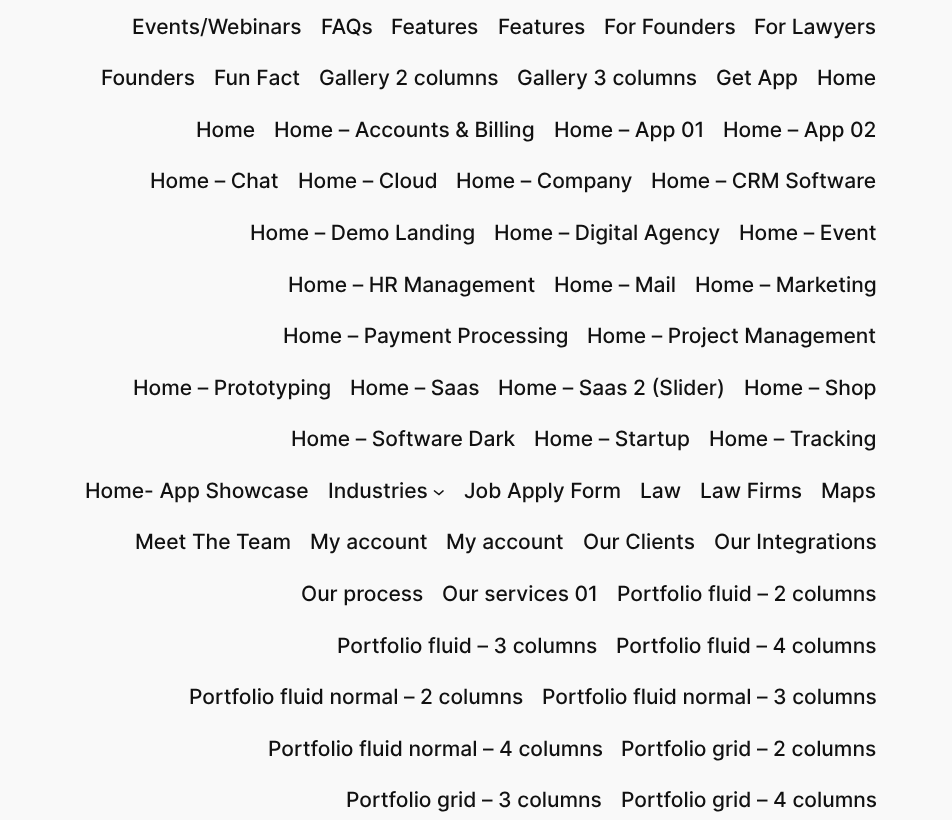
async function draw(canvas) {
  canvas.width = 952;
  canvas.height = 820;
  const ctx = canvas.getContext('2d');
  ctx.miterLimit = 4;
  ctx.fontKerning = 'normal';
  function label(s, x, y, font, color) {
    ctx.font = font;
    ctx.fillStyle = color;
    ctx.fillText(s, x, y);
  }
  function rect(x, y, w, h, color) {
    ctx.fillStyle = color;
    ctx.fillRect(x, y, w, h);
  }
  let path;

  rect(0, 0, 952, 820, '#f9f9f9');
  label('Events/Webinars', 132, 34, '500 21px Inter', '#111');
  label('FAQs', 321, 34, '500 21px Inter', '#111');
  label('Features', 391, 34, '500 21px Inter', '#111');
  label('Features', 498, 34, '500 21px Inter', '#111');
  label('For Founders', 604, 34, '500 21px Inter', '#111');
  label('For Lawyers', 754, 34, '500 21px Inter', '#111');
  label('Founders', 101, 85, '500 21px Inter', '#111');
  label('Fun Fact', 214, 85, '500 21px Inter', '#111');
  label('Gallery 2 columns', 319, 85, '500 21px Inter', '#111');
  label('Gallery 3 columns', 517, 85, '500 21px Inter', '#111');
  label('Get App', 716, 85, '500 21px Inter', '#111');
  label('Home', 817, 85, '500 21px Inter', '#111');
  label('Home', 196, 137, '500 21px Inter', '#111');
  label('Home – Accounts & Billing', 274, 137, '500 21px Inter', '#111');
  label('Home – App 01', 554, 137, '500 21px Inter', '#111');
  label('Home – App 02', 723, 137, '500 21px Inter', '#111');
  label('Home – Chat', 150, 188, '500 21px Inter', '#111');
  label('Home – Cloud', 298, 188, '500 21px Inter', '#111');
  label('Home – Company', 456, 188, '500 21px Inter', '#111');
  label('Home – CRM Software', 651, 188, '500 21px Inter', '#111');
  label('Home – Demo Landing', 250, 240, '500 21px Inter', '#111');
  label('Home – Digital Agency', 494, 240, '500 21px Inter', '#111');
  label('Home – Event', 739, 240, '500 21px Inter', '#111');
  label('Home – HR Management', 288, 292, '500 21px Inter', '#111');
  label('Home – Mail', 554, 292, '500 21px Inter', '#111');
  label('Home – Marketing', 695, 292, '500 21px Inter', '#111');
  label('Home – Payment Processing', 283, 343, '500 21px Inter', '#111');
  label('Home – Project Management', 587, 343, '500 21px Inter', '#111');
  label('Home – Prototyping', 133, 395, '500 21px Inter', '#111');
  label('Home – Saas', 350, 395, '500 21px Inter', '#111');
  label('Home – Saas 2 (Slider)', 498, 395, '500 21px Inter', '#111');
  label('Home – Shop', 744, 395, '500 21px Inter', '#111');
  label('Home – Software Dark', 291, 446, '500 21px Inter', '#111');
  label('Home – Startup', 534, 446, '500 21px Inter', '#111');
  label('Home – Tracking', 709, 446, '500 21px Inter', '#111');
  label('Home- App Showcase', 85, 498, '500 21px Inter', '#111');
  label('Industries', 328, 498, '500 21px Inter', '#111');
  path = new Path2D('M434 490.5L439 494.5L443.5 490.5');
  ctx.strokeStyle = '#111';
  ctx.lineWidth = 1.6;
  ctx.stroke(path);
  label('Job Apply Form', 464, 498, '500 21px Inter', '#111');
  label('Law', 640, 498, '500 21px Inter', '#111');
  label('Law Firms', 700, 498, '500 21px Inter', '#111');
  label('Maps', 821, 498, '500 21px Inter', '#111');
  label('Meet The Team', 135, 549, '500 21px Inter', '#111');
  label('My account', 310, 549, '500 21px Inter', '#111');
  label('My account', 446, 549, '500 21px Inter', '#111');
  label('Our Clients', 583, 549, '500 21px Inter', '#111');
  label('Our Integrations', 714, 549, '500 21px Inter', '#111');
  label('Our process', 301, 601, '500 21px Inter', '#111');
  label('Our services 01', 442, 601, '500 21px Inter', '#111');
  label('Portfolio fluid – 2 columns', 617, 601, '500 21px Inter', '#111');
  label('Portfolio fluid – 3 columns', 337, 653, '500 21px Inter', '#111');
  label('Portfolio fluid – 4 columns', 616, 653, '500 21px Inter', '#111');
  label('Portfolio fluid normal – 2 columns', 189, 704, '500 21px Inter', '#111');
  label('Portfolio fluid normal – 3 columns', 542, 704, '500 21px Inter', '#111');
  label('Portfolio fluid normal – 4 columns', 268, 756, '500 21px Inter', '#111');
  label('Portfolio grid – 2 columns', 621, 756, '500 21px Inter', '#111');
  label('Portfolio grid – 3 columns', 346, 807, '500 21px Inter', '#111');
  label('Portfolio grid – 4 columns', 621, 807, '500 21px Inter', '#111');
}

draw(document.querySelector('canvas'));
